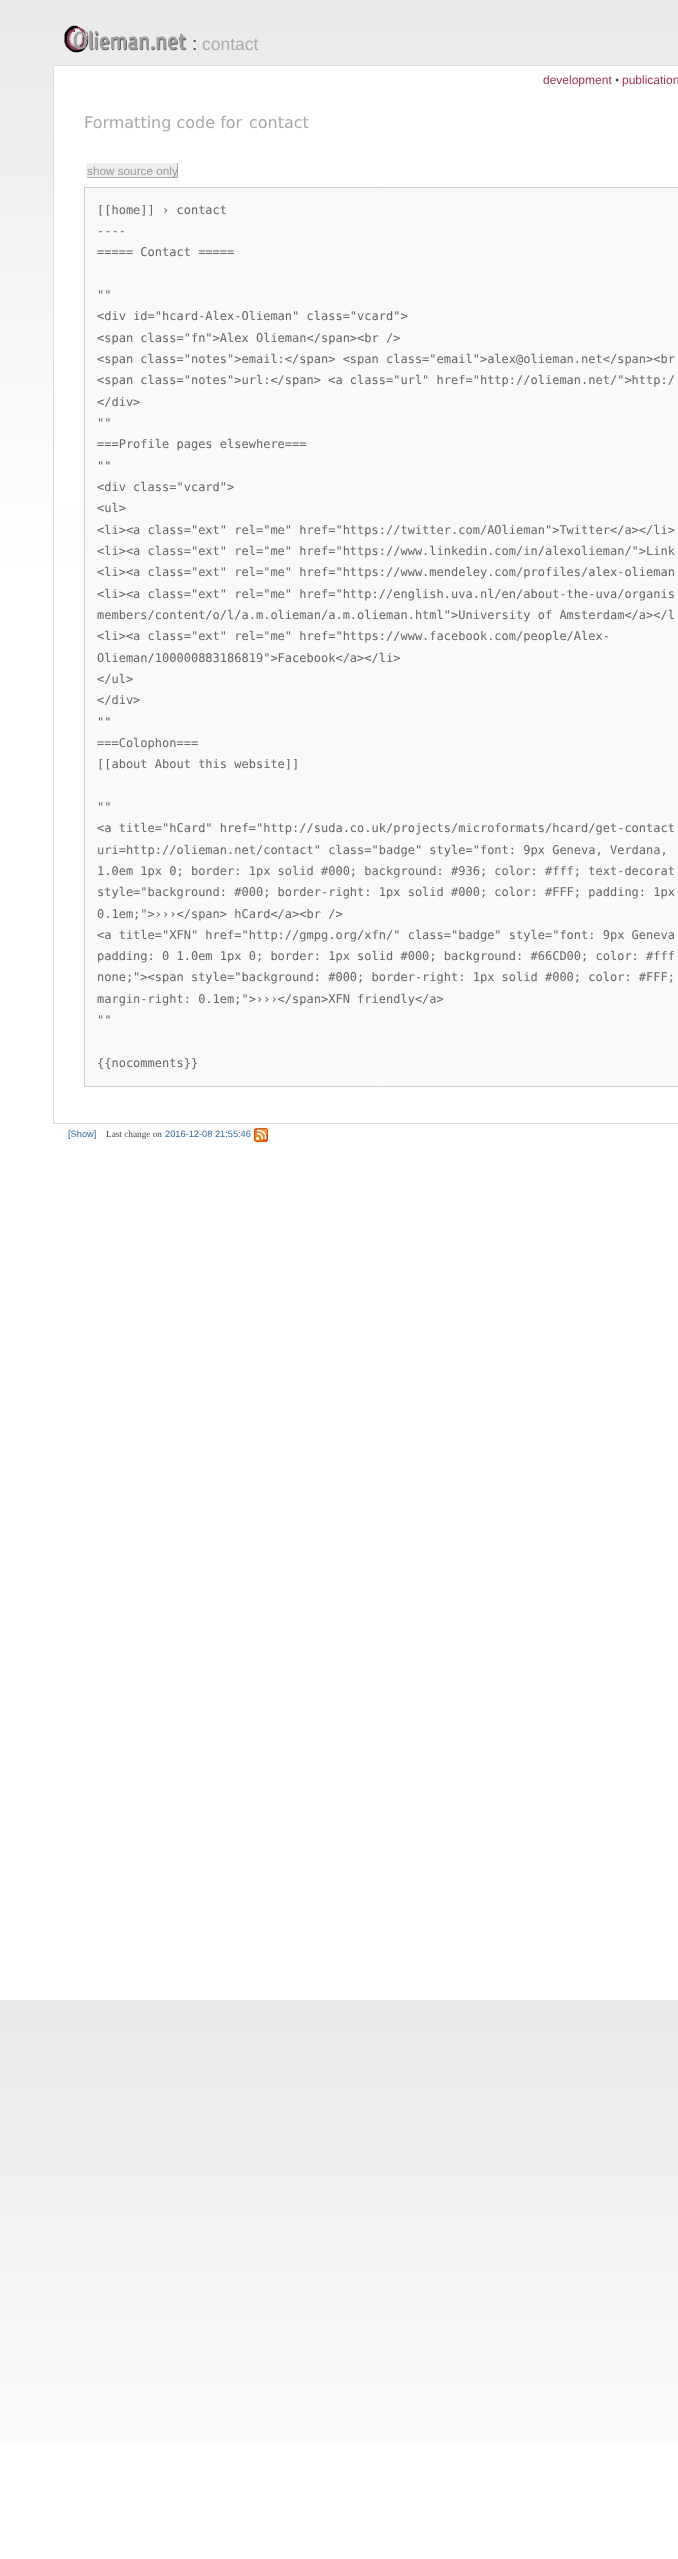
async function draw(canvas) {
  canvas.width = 678;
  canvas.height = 2559;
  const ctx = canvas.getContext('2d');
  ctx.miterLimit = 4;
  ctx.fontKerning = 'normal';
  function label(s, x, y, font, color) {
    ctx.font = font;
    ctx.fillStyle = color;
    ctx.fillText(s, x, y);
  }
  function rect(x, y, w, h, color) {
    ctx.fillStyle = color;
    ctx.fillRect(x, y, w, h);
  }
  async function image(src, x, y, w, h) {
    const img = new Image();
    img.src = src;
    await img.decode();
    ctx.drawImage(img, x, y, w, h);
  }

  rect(0, 0, 678, 2559, '#fff');
  await image('assets/img1.png', 0, 0, 678, 2444);
  await image('assets/img2.png', 64, 25, 123, 28);
  label('Olieman.net', 73, 49, 'bold 26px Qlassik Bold', '#a19d9e');
  label(':', 192, 50, '19px Liberation Sans', '#444');
  label('contact', 202, 50, '17.5px Liberation Sans', '#aaa');
  rect(54, 66, 624, 441, '#fff');
  ctx.strokeStyle = '#ddd';
  ctx.strokeRect(53.5, 65.5, 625, 1058);
  label('development', 543, 84, '12px Liberation Sans', '#935');
  label('•', 615, 84, '12px Liberation Serif', '#444');
  label('publication', 622, 84, '12px Liberation Sans', '#935');
  label('Formatting code for', 84, 128, '16px DejaVu Sans', '#aaa');
  label('contact', 249, 128, '16px DejaVu Sans', '#aaa');
  rect(87, 163, 90, 14, '#eee');
  rect(177, 163, 1, 15, '#aaa');
  rect(86, 177, 92, 1, '#aaa');
  label('show source only', 87, 175, '11.75px Liberation Sans', '#999');
  rect(86, 163, 1, 15, '#efefef');
  ctx.fillStyle = '#f9f9f9';
  ctx.beginPath();
  ctx.rect(84.5, 187.5, 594, 899);
  ctx.fill();
  ctx.strokeStyle = '#ccc';
  ctx.stroke();
  label('[[home]] › contact', 97, 214, '12px DejaVu Sans Mono', '#666');
  label('----', 97, 235, '12px DejaVu Sans Mono', '#666');
  label('===== Contact =====', 97, 256, '12px DejaVu Sans Mono', '#666');
  label('""', 97, 299, '12px DejaVu Sans Mono', '#666');
  label('<div id="hcard-Alex-Olieman" class="vcard">', 97, 320, '12px DejaVu Sans Mono', '#666');
  label('<span class="fn">Alex Olieman<\/span><br />', 97, 342, '12px DejaVu Sans Mono', '#666');
  label('<span class="notes">email:<\/span> <span class="email">alex@olieman.net<\/span><br', 97, 363, '12px DejaVu Sans Mono', '#666');
  label('<span class="notes">url:<\/span> <a class="url" href="http://olieman.net/">http:/', 97, 384, '12px DejaVu Sans Mono', '#666');
  label('<\/div>', 97, 406, '12px DejaVu Sans Mono', '#666');
  label('""', 97, 427, '12px DejaVu Sans Mono', '#666');
  label('===Profile pages elsewhere===', 97, 448, '12px DejaVu Sans Mono', '#666');
  label('""', 97, 470, '12px DejaVu Sans Mono', '#666');
  label('<div class="vcard">', 97, 491, '12px DejaVu Sans Mono', '#666');
  label('<ul>', 97, 512, '12px DejaVu Sans Mono', '#666');
  label('<li><a class="ext" rel="me" href="https://twitter.com/AOlieman">Twitter<\/a><\/li>', 97, 534, '12px DejaVu Sans Mono', '#666');
  label('<li><a class="ext" rel="me" href="https://www.linkedin.com/in/alexolieman/">Link', 97, 555, '12px DejaVu Sans Mono', '#666');
  label('<li><a class="ext" rel="me" href="https://www.mendeley.com/profiles/alex-olieman', 97, 576, '12px DejaVu Sans Mono', '#666');
  label('<li><a class="ext" rel="me" href="http://english.uva.nl/en/about-the-uva/organis', 97, 598, '12px DejaVu Sans Mono', '#666');
  label('members/content/o/l/a.m.olieman/a.m.olieman.html">University of Amsterdam<\/a><\/l', 97, 619, '12px DejaVu Sans Mono', '#666');
  label('<li><a class="ext" rel="me" href="https://www.facebook.com/people/Alex-', 97, 640, '12px DejaVu Sans Mono', '#666');
  label('Olieman/100000883186819">Facebook<\/a><\/li>', 97, 662, '12px DejaVu Sans Mono', '#666');
  label('<\/ul>', 97, 683, '12px DejaVu Sans Mono', '#666');
  label('<\/div>', 97, 704, '12px DejaVu Sans Mono', '#666');
  label('""', 97, 726, '12px DejaVu Sans Mono', '#666');
  label('===Colophon===', 97, 747, '12px DejaVu Sans Mono', '#666');
  label('[[about About this website]]', 97, 768, '12px DejaVu Sans Mono', '#666');
  label('""', 97, 811, '12px DejaVu Sans Mono', '#666');
  label('<a title="hCard" href="http://suda.co.uk/projects/microformats/hcard/get-contact', 97, 832, '12px DejaVu Sans Mono', '#666');
  label('uri=http://olieman.net/contact" class="badge" style="font: 9px Geneva, Verdana,', 97, 854, '12px DejaVu Sans Mono', '#666');
  label('1.0em 1px 0; border: 1px solid #000; background: #936; color: #fff; text-decorat', 97, 875, '12px DejaVu Sans Mono', '#666');
  label('style="background: #000; border-right: 1px solid #000; color: #FFF; padding: 1px', 97, 896, '12px DejaVu Sans Mono', '#666');
  label('0.1em;">›››<\/span> hCard<\/a><br />', 97, 918, '12px DejaVu Sans Mono', '#666');
  label('<a title="XFN" href="http://gmpg.org/xfn/" class="badge" style="font: 9px Geneva', 97, 939, '12px DejaVu Sans Mono', '#666');
  label('padding: 0 1.0em 1px 0; border: 1px solid #000; background: #66CD00; color: #fff', 97, 960, '12px DejaVu Sans Mono', '#666');
  label('none;"><span style="background: #000; border-right: 1px solid #000; color: #FFF;', 97, 981, '12px DejaVu Sans Mono', '#666');
  label('margin-right: 0.1em;">›››<\/span>XFN friendly<\/a>', 97, 1003, '12px DejaVu Sans Mono', '#666');
  label('""', 97, 1024, '12px DejaVu Sans Mono', '#666');
  label('{{nocomments}}', 97, 1067, '12px DejaVu Sans Mono', '#666');
  label('[Show]', 68, 1137, '9.25px Liberation Sans', '#369');
  label('Last change on', 106, 1137, '9.25px Liberation Serif', '#444');
  label('2016-12-08 21:55:46', 165, 1137, '9.25px Liberation Sans', '#369');
  await image('assets/img3.png', 254, 1128, 14, 14);
}

draw(document.querySelector('canvas'));
